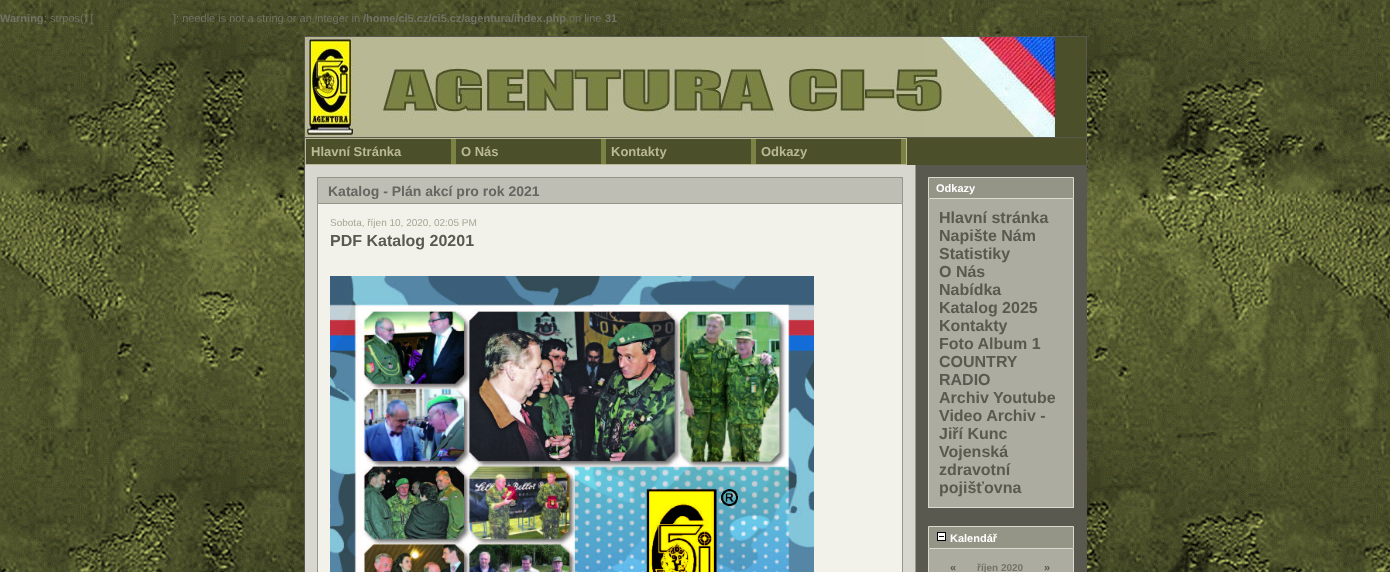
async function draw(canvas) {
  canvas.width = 1390;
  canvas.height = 572;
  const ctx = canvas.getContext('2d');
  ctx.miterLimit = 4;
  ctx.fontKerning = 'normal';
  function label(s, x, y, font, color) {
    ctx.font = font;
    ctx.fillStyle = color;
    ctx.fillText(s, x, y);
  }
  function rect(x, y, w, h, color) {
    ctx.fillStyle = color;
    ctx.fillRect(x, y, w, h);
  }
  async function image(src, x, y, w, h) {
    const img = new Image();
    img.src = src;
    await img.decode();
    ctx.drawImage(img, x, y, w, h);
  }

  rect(0, 0, 1390, 572, '#fff');
  await image('assets/img1.png', 0, 0, 1390, 572);
  label('Warning', 0, 22, 'bold 11px Liberation Sans', '#737367');
  label(': strpos() [', 44, 22, '11px Liberation Sans', '#737367');
  label(']: needle is not a string or an integer in', 173, 22, '11px Liberation Sans', '#737367');
  label('/home/ci5.cz/ci5.cz/agentura/index.php', 363, 22, 'bold 11px Liberation Sans', '#737367');
  label('on line', 569, 22, '11px Liberation Sans', '#737367');
  label('31', 605, 22, 'bold 11px Liberation Sans', '#737367');
  ctx.strokeStyle = '#58584e';
  ctx.strokeRect(304.5, 36.5, 782, 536);
  rect(907, 37, 179, 128, '#4b502a');
  rect(305, 137, 781, 1, '#58584e');
  await image('assets/img2.png', 305, 37, 750, 100);
  rect(451, 139, 455, 25, '#7b8344');
  ctx.strokeStyle = '#b9b995';
  ctx.strokeRect(305.5, 138.5, 601, 26);
  rect(306, 139, 145, 25, '#4b502a');
  label('Hlavní Stránka', 311, 156, 'bold 13px Liberation Sans', '#b9b995');
  rect(456, 139, 145, 25, '#4b502a');
  label('O Nás', 461, 156, 'bold 13px Liberation Sans', '#b9b995');
  rect(606, 139, 145, 25, '#4b502a');
  label('Kontakty', 611, 156, 'bold 13px Liberation Sans', '#b9b995');
  rect(756, 139, 145, 25, '#4b502a');
  label('Odkazy', 761, 156, 'bold 13px Liberation Sans', '#b9b995');
  rect(305, 165, 610, 407, '#d7d7cf');
  rect(318, 178, 584, 25, '#bebeb5');
  rect(317, 177, 586, 1, '#95958c');
  rect(902, 177, 1, 26, '#95958c');
  rect(317, 177, 1, 26, '#95958c');
  label('Katalog - Plán akcí pro rok 2021', 328, 196, 'bold 14px Liberation Sans', '#666661');
  ctx.fillStyle = '#f2f2eb';
  ctx.beginPath();
  ctx.rect(317.5, 203.5, 585, 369);
  ctx.fill();
  ctx.strokeStyle = '#95958c';
  ctx.stroke();
  label('Sobota, říjen 10, 2020, 02:05 PM', 330, 226, '10px Liberation Sans', '#a6a695');
  label('PDF Katalog 20201', 330, 246, 'bold 16px Liberation Sans', '#59594f');
  await image('assets/img3.png', 330, 276, 484, 296);
  rect(916, 165, 170, 407, '#59594f');
  rect(915, 165, 1, 407, '#9a9a8c');
  ctx.fillStyle = '#959587';
  ctx.beginPath();
  ctx.rect(928.5, 177.5, 145, 21);
  ctx.fill();
  ctx.strokeStyle = '#dadace';
  ctx.stroke();
  label('Odkazy', 936, 192, 'bold 11px Liberation Sans', '#fff');
  rect(929, 199, 144, 308, '#acaca0');
  rect(1073, 199, 1, 309, '#dadace');
  rect(928, 507, 146, 1, '#dadace');
  rect(928, 199, 1, 309, '#dadace');
  label('Hlavní stránka', 939, 223, 'bold 16px Liberation Sans', '#59594f');
  label('Napište Nám', 939, 241, 'bold 16px Liberation Sans', '#59594f');
  label('Statistiky', 939, 259, 'bold 16px Liberation Sans', '#59594f');
  label('O Nás', 939, 277, 'bold 16px Liberation Sans', '#59594f');
  label('Nabídka', 939, 295, 'bold 16px Liberation Sans', '#59594f');
  label('Katalog 2025', 939, 313, 'bold 16px Liberation Sans', '#59594f');
  label('Kontakty', 939, 331, 'bold 16px Liberation Sans', '#59594f');
  label('Foto Album 1', 939, 349, 'bold 16px Liberation Sans', '#59594f');
  label('COUNTRY', 939, 367, 'bold 16px Liberation Sans', '#59594f');
  label('RADIO', 939, 385, 'bold 16px Liberation Sans', '#59594f');
  label('Archiv Youtube', 939, 403, 'bold 16px Liberation Sans', '#59594f');
  label('Video Archiv -', 939, 421, 'bold 16px Liberation Sans', '#59594f');
  label('Jiří Kunc', 939, 439, 'bold 16px Liberation Sans', '#59594f');
  label('Vojenská', 939, 457, 'bold 16px Liberation Sans', '#59594f');
  label('zdravotní', 939, 475, 'bold 16px Liberation Sans', '#59594f');
  label('pojišťovna', 939, 493, 'bold 16px Liberation Sans', '#59594f');
  ctx.fillStyle = '#959587';
  ctx.beginPath();
  ctx.rect(928.5, 526.5, 145, 22);
  ctx.fill();
  ctx.stroke();
  await image('assets/img4.png', 937, 532, 9, 9);
  label('Kalendář', 950, 542, 'bold 11px Liberation Sans', '#fff');
  rect(929, 549, 144, 23, '#acaca0');
  rect(1073, 549, 1, 23, '#dadace');
  rect(928, 549, 1, 23, '#dadace');
  label('«', 950, 571, 'bold 11px Liberation Sans', '#59594f');
  label('říjen 2020', 977, 571, 'bold 10px Liberation Sans', '#737367');
  label('»', 1044, 571, 'bold 11px Liberation Sans', '#59594f');
}

draw(document.querySelector('canvas'));
